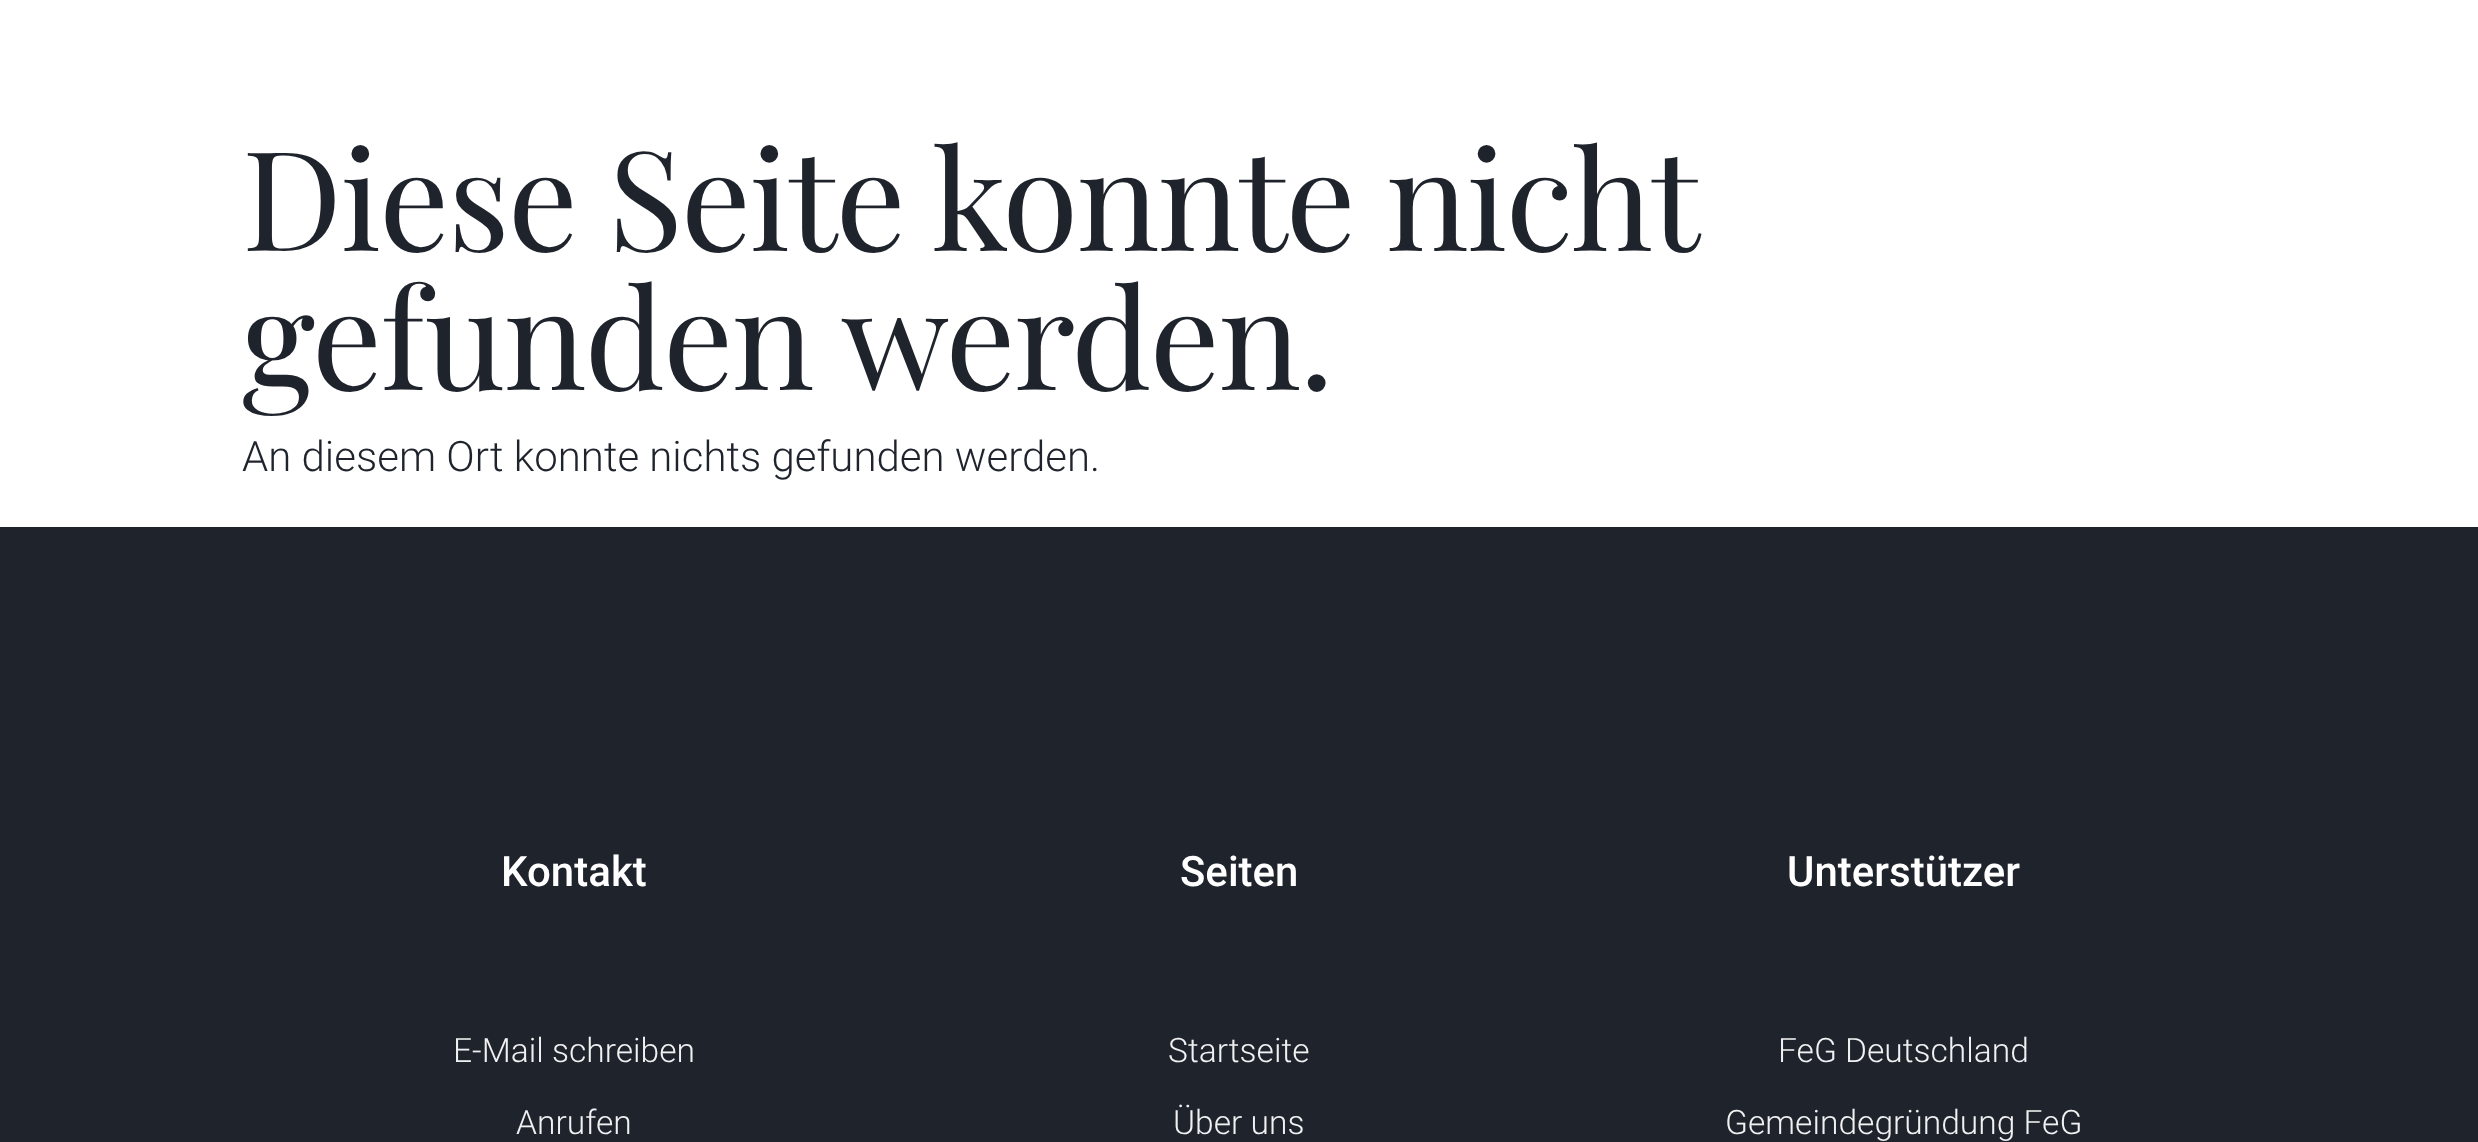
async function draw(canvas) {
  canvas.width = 2478;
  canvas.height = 1142;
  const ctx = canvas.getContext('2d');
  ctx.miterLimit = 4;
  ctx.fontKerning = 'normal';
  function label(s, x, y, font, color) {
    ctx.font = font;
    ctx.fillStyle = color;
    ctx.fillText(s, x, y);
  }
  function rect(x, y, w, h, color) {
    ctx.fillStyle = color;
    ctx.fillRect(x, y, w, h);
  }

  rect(0, 0, 2478, 1142, '#fff');
  ctx.letterSpacing = '-1.75px';
  ctx.wordSpacing = '-1px';
  label('Diese Seite konnte nicht', 242, 251, '138.6px Playfair Display', '#1f232c');
  ctx.wordSpacing = '0px';
  label('gefunden werden.', 242, 390, '138.6px Playfair Display', '#1f232c');
  ctx.letterSpacing = '0px';
  label('An diesem Ort konnte nichts gefunden werden.', 242, 471, '300 42px Roboto', '#1f232c');
  rect(0, 527, 2478, 615, '#1f232c');
  label('Kontakt', 501, 886, '500 42px Roboto', '#fff');
  label('E-Mail schreiben', 453, 1062, '300 33.6px Roboto', '#f0f1f2');
  label('Anrufen', 516, 1134, '300 33.6px Roboto', '#f0f1f2');
  label('Seiten', 1180, 886, '500 42px Roboto', '#fff');
  label('Startseite', 1168, 1062, '300 33.6px Roboto', '#f0f1f2');
  label('Über uns', 1173, 1134, '300 33.6px Roboto', '#f0f1f2');
  label('Unterstützer', 1787, 886, '500 42px Roboto', '#fff');
  label('FeG Deutschland', 1778, 1062, '300 33.6px Roboto', '#f0f1f2');
  label('Gemeindegründung FeG', 1725, 1134, '300 33.6px Roboto', '#f0f1f2');
}

draw(document.querySelector('canvas'));
